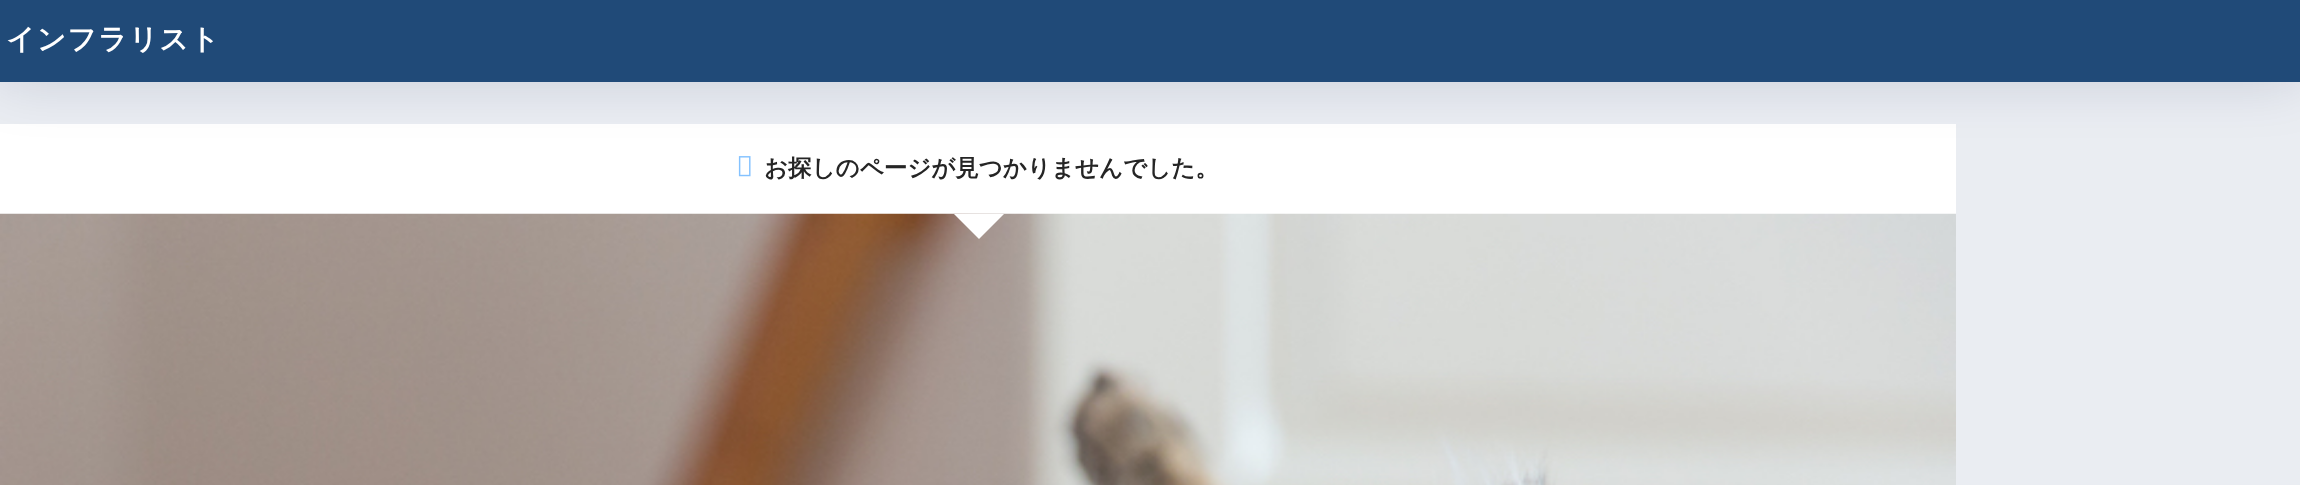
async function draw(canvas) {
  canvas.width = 2300;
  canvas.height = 485;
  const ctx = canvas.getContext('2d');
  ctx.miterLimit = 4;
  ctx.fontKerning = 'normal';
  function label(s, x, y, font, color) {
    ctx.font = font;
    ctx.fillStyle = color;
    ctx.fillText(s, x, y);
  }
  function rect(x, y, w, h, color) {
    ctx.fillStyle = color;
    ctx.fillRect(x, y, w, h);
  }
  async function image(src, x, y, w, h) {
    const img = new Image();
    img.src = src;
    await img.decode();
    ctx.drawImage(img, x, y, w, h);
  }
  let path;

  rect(0, 0, 2300, 485, '#eaedf2');
  rect(0, 124, 1956, 90, '#fff');
  await image('assets/img1.png', 738, 156, 13, 21);
  ctx.fillStyle = '#000c4226';
  ctx.filter = 'blur(28px)';
  ctx.beginPath();
  ctx.rect(0, 0, 2300, 81);
  ctx.fill();
  ctx.filter = 'none';
  rect(0, 0, 2300, 82, '#204a78');
  ctx.letterSpacing = '1.25px';
  label('インフラリスト', 6, 49, 'bold 28.75px WenQuanYi Zen Hei', '#fff');
  ctx.letterSpacing = '0px';
  label('お探しのページが見つかりませんでした。', 764, 176, 'bold 23.5px WenQuanYi Zen Hei', '#252525');
  await image('assets/img2.png', 0, 213, 1956, 272);
  ctx.fillStyle = '#fff';
  path = new Path2D('M954 214H1004L979 239Z');
  ctx.fill(path);
}

draw(document.querySelector('canvas'));
